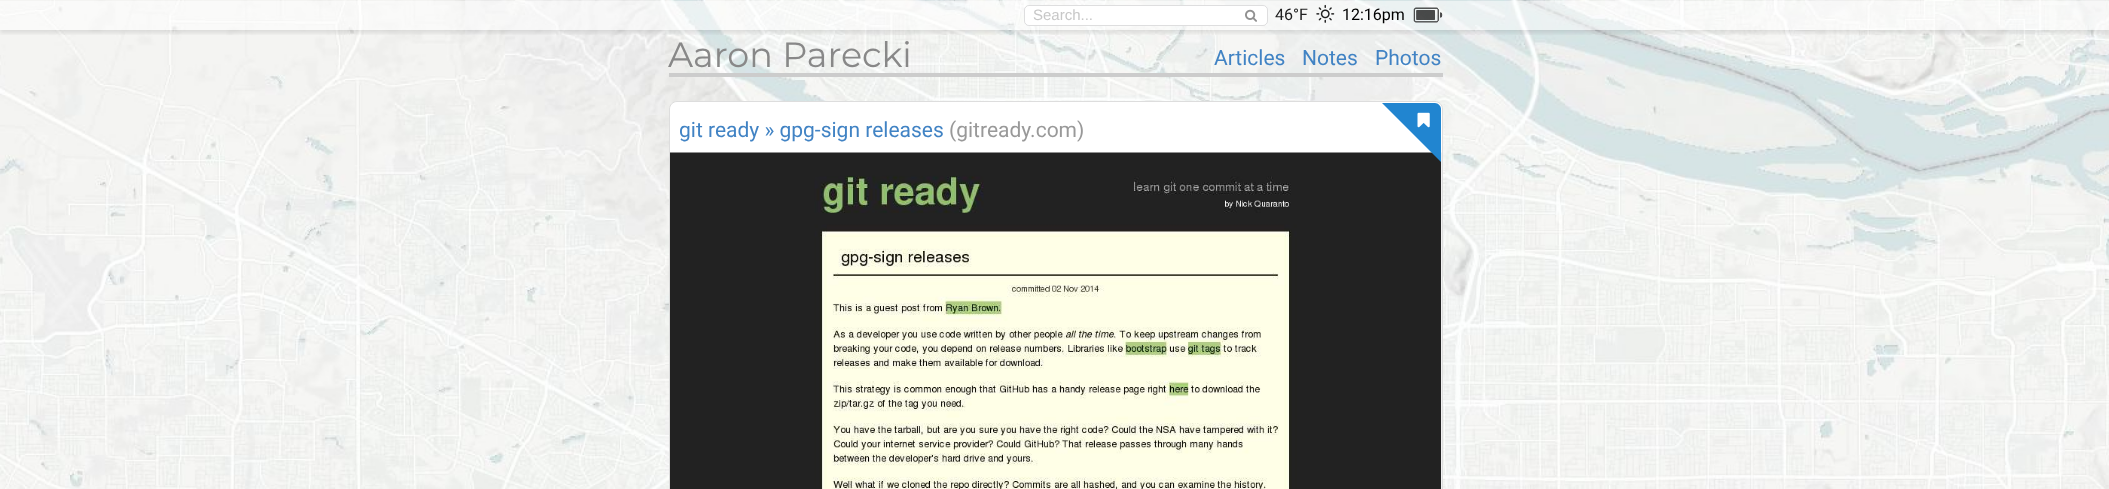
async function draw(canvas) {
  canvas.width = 2109;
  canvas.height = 489;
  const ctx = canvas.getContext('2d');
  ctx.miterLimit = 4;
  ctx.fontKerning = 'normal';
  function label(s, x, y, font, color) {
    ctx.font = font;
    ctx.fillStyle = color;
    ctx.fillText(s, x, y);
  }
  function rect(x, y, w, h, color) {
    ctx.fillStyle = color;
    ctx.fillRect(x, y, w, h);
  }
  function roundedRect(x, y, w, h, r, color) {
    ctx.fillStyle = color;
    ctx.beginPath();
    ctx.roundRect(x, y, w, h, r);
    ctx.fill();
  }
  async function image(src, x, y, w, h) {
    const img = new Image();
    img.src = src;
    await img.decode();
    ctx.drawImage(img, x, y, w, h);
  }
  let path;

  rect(0, 0, 2109, 489, '#fff');
  await image('assets/img1.png', 0, 0, 2109, 489);
  ctx.save();
  ctx.beginPath();
  ctx.rect(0, 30, 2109, 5);
  ctx.clip();
  ctx.fillStyle = '#0000001a';
  ctx.filter = 'blur(2px)';
  ctx.beginPath();
  ctx.rect(0, 4, 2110, 29);
  ctx.fill();
  ctx.filter = 'none';
  ctx.restore();
  rect(0, 1, 2109, 29, '#ffffff80');
  roundedRect(1024, 5, 244, 21, 5, '#fff');
  ctx.beginPath();
  ctx.roundRect(1024.5, 5.5, 243, 20, 4.5);
  ctx.strokeStyle = '#22242626';
  ctx.stroke();
  label('Search...', 1033, 20, '15px Liberation Sans', '#c7c7c7');
  await image('assets/img2.png', 1245, 9, 12, 13);
  label('46°F', 1275, 20, '16px Roboto', '#202020');
  await image('assets/img3.png', 1316, 4, 19, 19);
  label('12:16pm', 1342, 20, '16px Roboto', '#000');
  await image('assets/img4.png', 1413, 7, 30, 16);
  rect(669, 73, 774, 4, '#ccc');
  label('Aaron Parecki', 668, 67, '35px Montserrat', '#888');
  label('Articles', 1214, 65, '21px Roboto', '#4183c4');
  label('Notes', 1302, 65, '21px Roboto', '#4183c4');
  label('Photos', 1375, 65, '21px Roboto', '#4183c4');
  ctx.fillStyle = '#fff';
  path = new Path2D('M677 101.5H1435C1439 101.5 1442.5 105 1442.5 109V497.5H669.5V109C669.5 105 673 101.5 677 101.5Z');
  ctx.fill(path);
  ctx.strokeStyle = '#ddd';
  ctx.stroke(path);
  label('git ready » gpg-sign releases', 679, 137, '21px Roboto', '#4183c4');
  label('(gitready.com)', 949, 137, '21px Roboto', '#999');
  await image('assets/img6.png', 670, 152, 772, 337);
  ctx.fillStyle = '#2185d0';
  path = new Path2D('M1382 103H1435C1438 103 1441 106 1441 109V162Z');
  ctx.fill(path);
  await image('assets/img5.png', 1417, 112, 13, 16);
}

draw(document.querySelector('canvas'));
